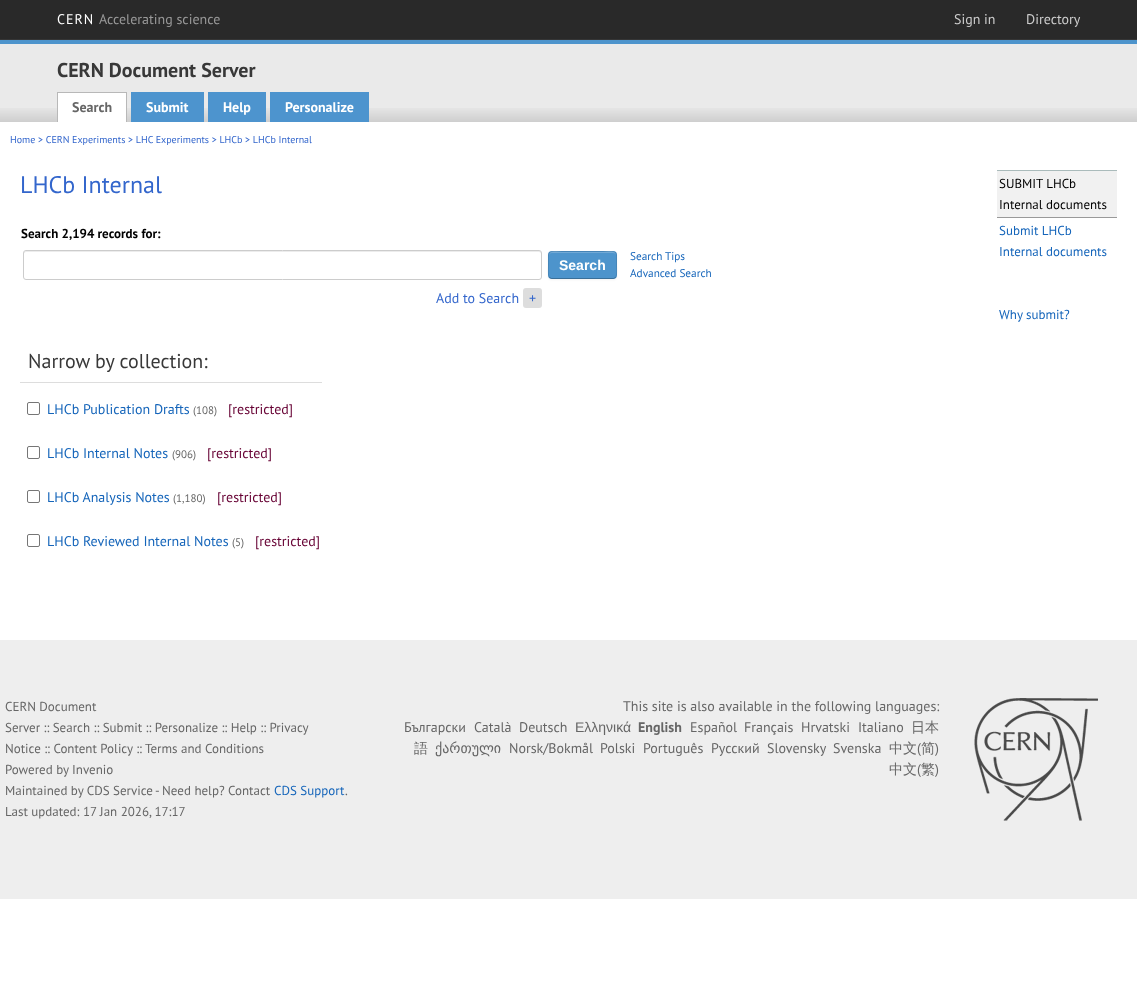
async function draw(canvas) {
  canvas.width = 1137;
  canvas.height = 989;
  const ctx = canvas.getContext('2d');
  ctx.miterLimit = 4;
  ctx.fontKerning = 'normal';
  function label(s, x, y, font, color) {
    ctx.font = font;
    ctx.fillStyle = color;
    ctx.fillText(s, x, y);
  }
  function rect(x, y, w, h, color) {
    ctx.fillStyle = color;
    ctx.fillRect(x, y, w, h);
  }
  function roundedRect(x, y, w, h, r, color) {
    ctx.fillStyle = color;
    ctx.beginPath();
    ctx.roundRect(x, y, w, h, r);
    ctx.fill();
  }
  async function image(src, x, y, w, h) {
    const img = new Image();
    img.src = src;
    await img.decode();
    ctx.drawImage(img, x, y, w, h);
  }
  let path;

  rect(0, 0, 1137, 989, '#fff');
  rect(0, 0, 1137, 39, '#292929');
  rect(0, 39, 1137, 1, '#353535');
  ctx.letterSpacing = '1px';
  label('CERN', 57, 24, '14px PT Sans', '#fff');
  ctx.letterSpacing = '0px';
  label('Accelerating science', 99, 24, '14px PT Sans', '#999');
  label('Sign in', 954, 24, '14px PT Sans', '#ccc');
  label('Directory', 1026, 24, '14px PT Sans', '#ccc');
  rect(0, 44, 1137, 78, '#eaeaea');
  await image('assets/img1.png', 0, 108, 1137, 14);
  rect(0, 40, 1137, 4, '#4d94cc');
  label('CERN Document Server', 57, 77, 'bold 20px PT Sans', '#383838');
  rect(58, 93, 68, 29, '#fff');
  rect(57, 92, 70, 1, '#b8b8b8');
  rect(126, 92, 1, 30, '#b8b8b8');
  rect(57, 92, 1, 30, '#b8b8b8');
  label('Search', 72, 112, 'bold 14px PT Sans', '#666');
  rect(131, 92, 73, 30, '#4d94ce');
  label('Submit', 146, 112, 'bold 14px PT Sans', '#fff');
  rect(208, 92, 58, 30, '#4d94ce');
  label('Help', 223, 112, 'bold 14px PT Sans', '#fff');
  rect(270, 92, 99, 30, '#4d94ce');
  label('Personalize', 285, 112, 'bold 14px PT Sans', '#fff');
  label('Home > CERN Experiments > LHC Experiments > LHCb > LHCb Internal', 10, 143, '10px PT Sans', '#36c');
  label('LHCb Internal', 20, 193, '24px PT Sans', '#36c');
  label('Search 2,194 records for:', 21, 238, 'bold 13px PT Sans', '#000');
  ctx.fillStyle = '#ececec';
  path = new Path2D('M26 252H539C540 252 541 253 541 254C541 253 541 251 539 251H26L24 252V254C24 253 25 252 26 252Z');
  ctx.fill(path);
  ctx.beginPath();
  ctx.roundRect(23.5, 250.5, 518, 29, 2.5);
  ctx.strokeStyle = '#ccc';
  ctx.stroke();
  ctx.fillStyle = '#0000000d';
  ctx.filter = 'blur(1px)';
  ctx.beginPath();
  ctx.roundRect(548, 252, 69, 28, 4);
  ctx.fill();
  ctx.filter = 'none';
  roundedRect(548, 251, 69, 28, 4, '#4d94cc');
  ctx.fillStyle = '#71a9d6';
  path = new Path2D('M552 253H613C615 253 616 254 616 256C616 249 607 252 603 252H562C558 252 549 249 549 256C549 254 550 253 552 253Z');
  ctx.fill(path);
  path = new Path2D('M615.5 277.5L613.5 278.5H551.5L549.5 277.5');
  ctx.strokeStyle = '#00000040';
  ctx.stroke(path);
  path = new Path2D('M549.5 277.5C547.5 275 548.5 267.5 548.5 265C548.5 250 546.5 251.5 562 251.5H603C618.5 251.5 616.5 250 616.5 265C616.5 267.5 617.5 275 615.5 277.5');
  ctx.strokeStyle = '#0000001a';
  ctx.stroke(path);
  label('Search', 559, 270, 'bold 14px Liberation Sans', '#fff');
  label('Search Tips', 630, 260, '11.25px PT Sans', '#1565ba');
  label('Advanced Search', 630, 277, '11.25px PT Sans', '#1565ba');
  label('Add to Search', 436, 303, '14px PT Sans', '#36c');
  roundedRect(523, 288, 19, 20, 3, '#ddd');
  label('+', 529, 303, '14px PT Sans', '#36c');
  rect(20, 382, 302, 1, '#ddd');
  label('Narrow by collection:', 28, 368, '20px PT Sans', '#383838');
  ctx.beginPath();
  ctx.roundRect(27.5, 402.5, 12, 12, 1.5);
  ctx.strokeStyle = '#767676';
  ctx.stroke();
  label('LHCb Publication Drafts', 47, 414, '14px PT Sans', '#1565ba');
  label('(108)', 193, 414, '11px PT Sans', '#666');
  label('[restricted]', 228, 414, '14px PT Sans', '#603');
  ctx.beginPath();
  ctx.roundRect(27.5, 446.5, 12, 12, 1.5);
  ctx.stroke();
  label('LHCb Internal Notes', 47, 458, '14px PT Sans', '#1565ba');
  label('(906)', 172, 458, '11px PT Sans', '#666');
  label('[restricted]', 207, 458, '14px PT Sans', '#603');
  ctx.beginPath();
  ctx.roundRect(27.5, 490.5, 12, 12, 1.5);
  ctx.stroke();
  label('LHCb Analysis Notes', 47, 502, '14px PT Sans', '#1565ba');
  label('(1,180)', 173, 502, '11px PT Sans', '#666');
  label('[restricted]', 217, 502, '14px PT Sans', '#603');
  ctx.beginPath();
  ctx.roundRect(27.5, 534.5, 12, 12, 1.5);
  ctx.stroke();
  label('LHCb Reviewed Internal Notes', 47, 546, '14px PT Sans', '#1565ba');
  label('(5)', 232, 546, '11px PT Sans', '#666');
  label('[restricted]', 255, 546, '14px PT Sans', '#603');
  rect(997, 170, 120, 1, '#abb');
  rect(997, 171, 120, 46, '#f1f1f1');
  rect(997, 217, 120, 1, '#999');
  label('SUBMIT LHCb', 999, 188, '13px PT Sans', '#000');
  label('Internal documents', 999, 209, '13px PT Sans', '#000');
  label('Submit LHCb', 999, 235, '13px PT Sans', '#1565ba');
  label('Internal documents', 999, 256, '13px PT Sans', '#1565ba');
  label('Why submit?', 999, 319, '13px PT Sans', '#1565ba');
  rect(0, 640, 1137, 259, '#eee');
  label('CERN Document', 5, 711, '13px PT Sans', '#666');
  label('Server :: Search :: Submit :: Personalize :: Help :: Privacy', 5, 732, '13px PT Sans', '#666');
  label('Notice :: Content Policy :: Terms and Conditions', 5, 753, '13px PT Sans', '#666');
  label('Powered by Invenio', 5, 774, '13px PT Sans', '#666');
  label('Maintained by CDS Service', 5, 795, '13px PT Sans', '#666');
  label('- Need help? Contact', 155, 795, '13px PT Sans', '#666');
  label('CDS Support', 274, 795, '13px PT Sans', '#1565ba');
  label('.', 345, 795, '13px PT Sans', '#666');
  label('Last updated: 17 Jan 2026, 17:17', 5, 816, '13px PT Sans', '#666');
  label('This site is also available in the following languages:', 623, 711, '14px PT Sans', '#666');
  label('Български', 404, 732, '14px PT Sans', '#666');
  label('Català', 474, 732, '14px PT Sans', '#666');
  label('Deutsch', 519, 732, '14px PT Sans', '#666');
  label('Ελληνικά', 575, 732, '14px Liberation Sans', '#666');
  label('English', 638, 732, 'bold 14px PT Sans', '#666');
  label('Español', 690, 732, '14px PT Sans', '#666');
  label('Français', 744, 732, '14px PT Sans', '#666');
  label('Hrvatski', 801, 732, '14px PT Sans', '#666');
  label('Italiano', 858, 732, '14px PT Sans', '#666');
  label('日本', 911, 732, '500 14px WenQuanYi Zen Hei', '#666');
  label('語', 414, 753, '500 14px WenQuanYi Zen Hei', '#666');
  label('ქართული', 435, 753, '14px DejaVu Sans', '#666');
  label('Norsk/Bokmål', 509, 753, '14px PT Sans', '#666');
  label('Polski', 600, 753, '14px PT Sans', '#666');
  label('Português', 643, 753, '14px PT Sans', '#666');
  label('Русский', 711, 753, '14px PT Sans', '#666');
  label('Slovensky', 767, 753, '14px PT Sans', '#666');
  label('Svenska', 833, 753, '14px PT Sans', '#666');
  label('中文', 889, 753, '500 14px WenQuanYi Zen Hei', '#666');
  label('(', 917, 753, '14px PT Sans', '#666');
  label('简', 921, 753, '500 14px WenQuanYi Zen Hei', '#666');
  label(')', 935, 753, '14px PT Sans', '#666');
  label('中文', 889, 774, '500 14px WenQuanYi Zen Hei', '#666');
  label('(', 917, 774, '14px PT Sans', '#666');
  label('繁', 921, 774, '500 14px WenQuanYi Zen Hei', '#666');
  label(')', 935, 774, '14px PT Sans', '#666');
  await image('assets/img2.png', 974, 698, 124, 123);
}

draw(document.querySelector('canvas'));
